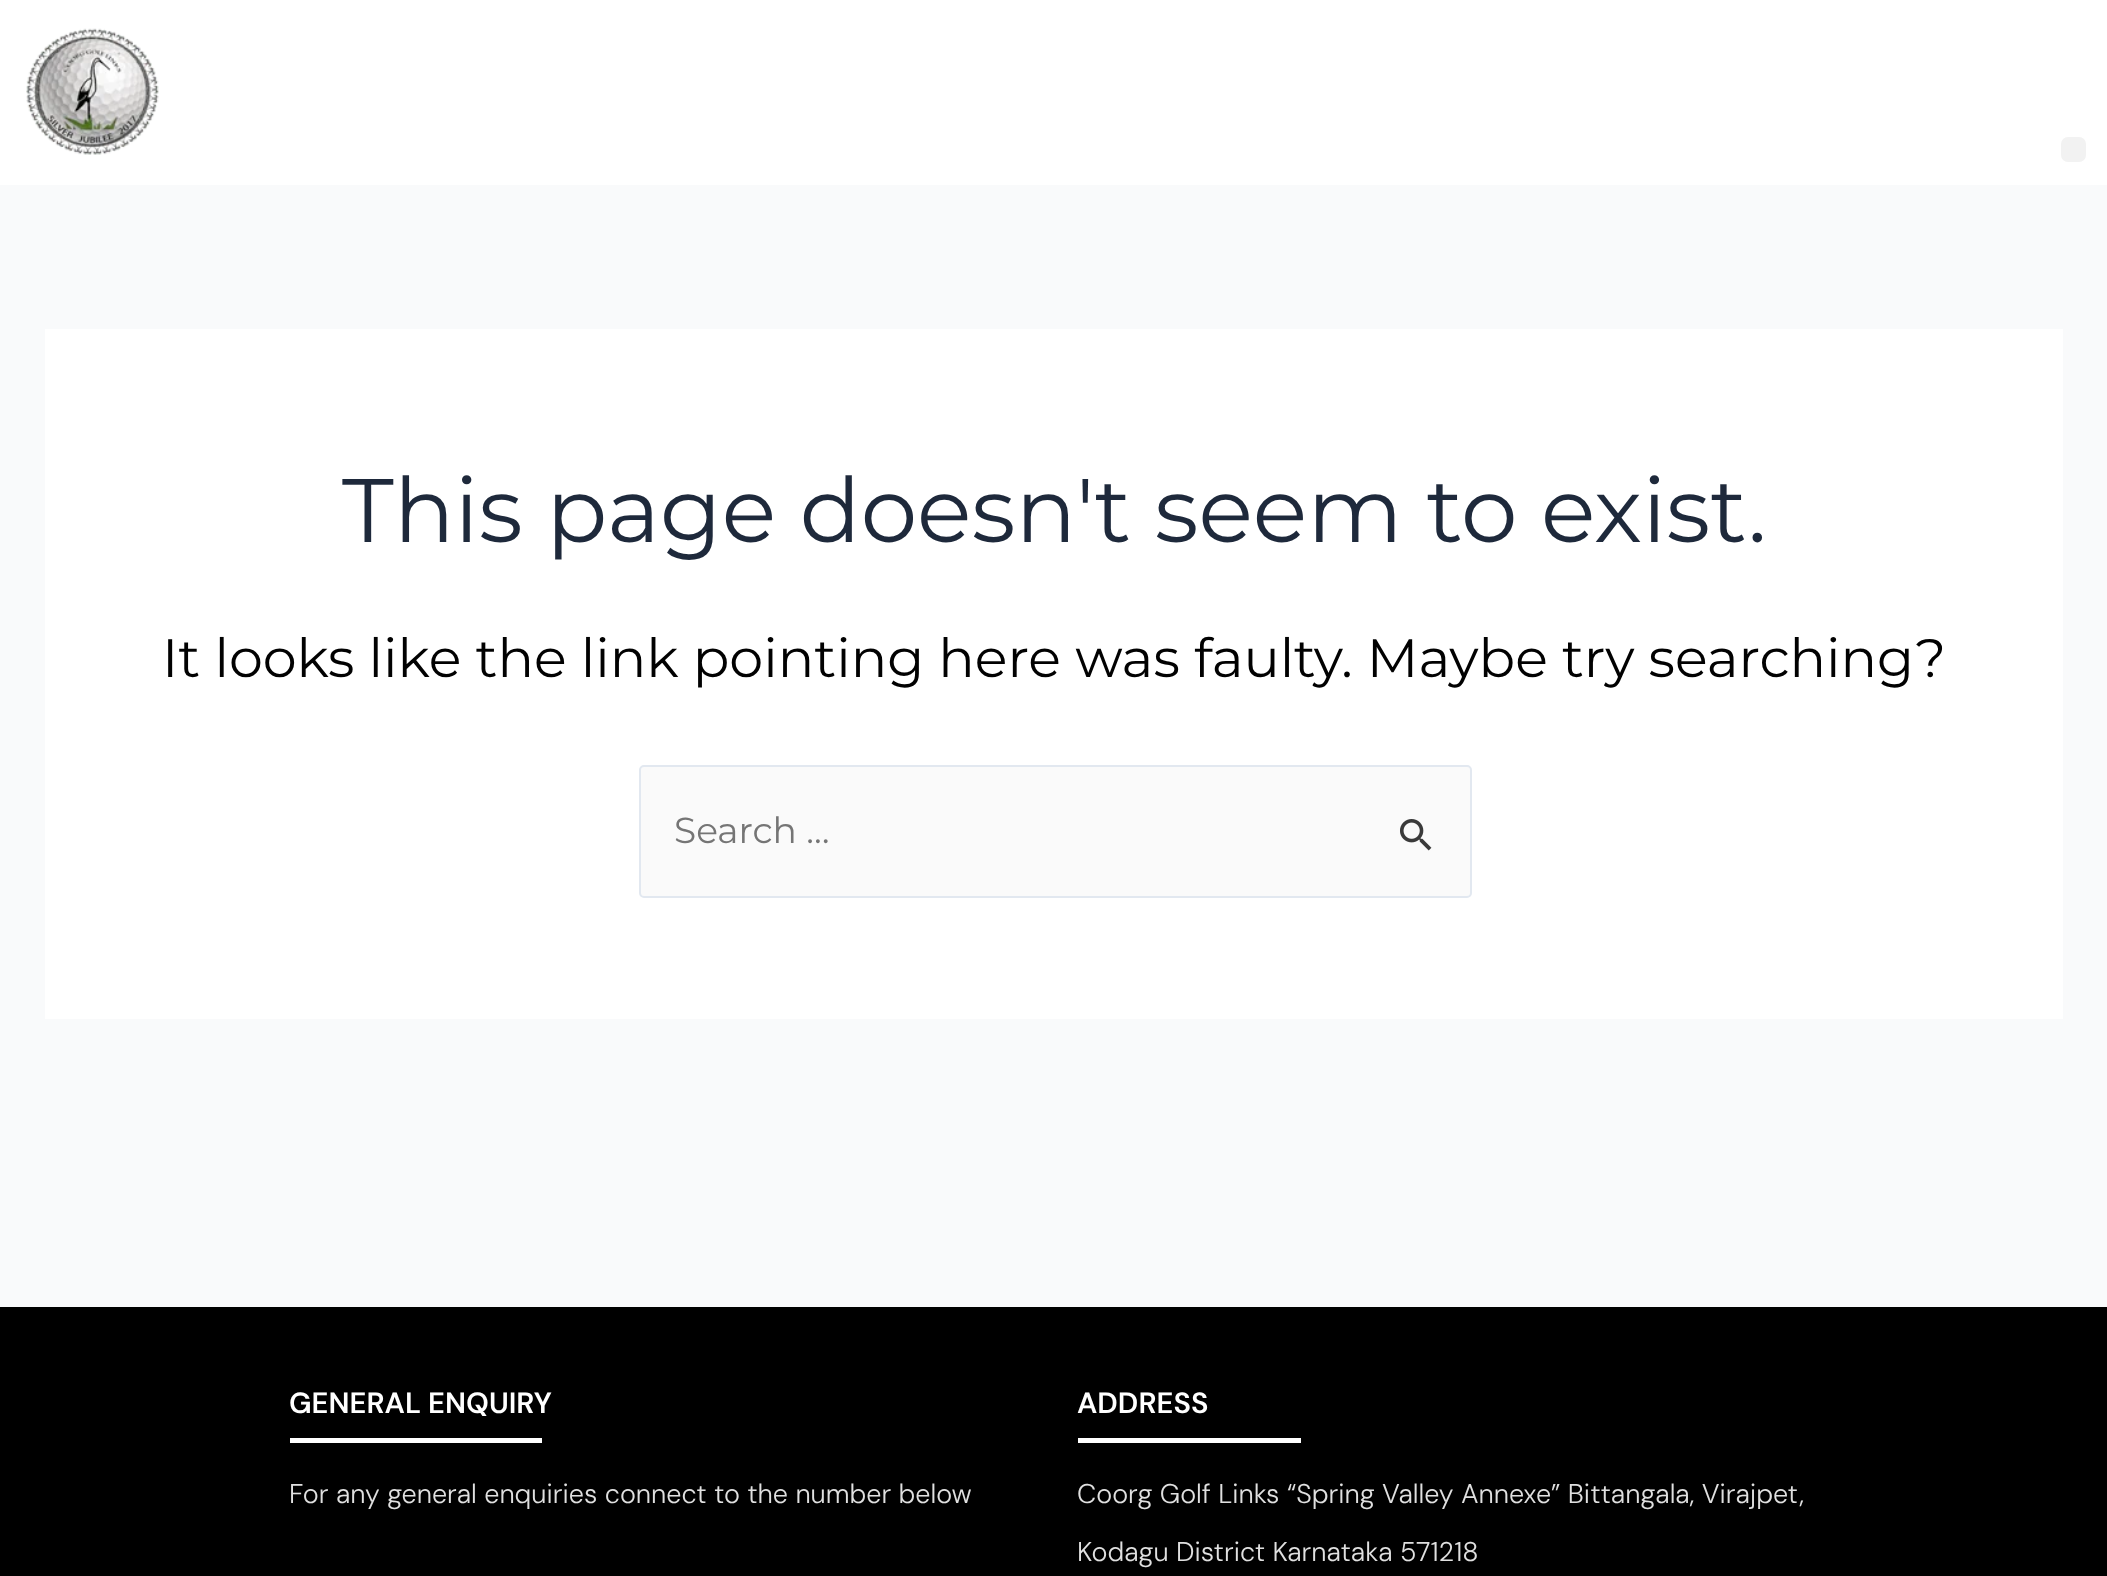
async function draw(canvas) {
  canvas.width = 2107;
  canvas.height = 1576;
  const ctx = canvas.getContext('2d');
  ctx.miterLimit = 4;
  ctx.fontKerning = 'normal';
  function label(s, x, y, font, color) {
    ctx.font = font;
    ctx.fillStyle = color;
    ctx.fillText(s, x, y);
  }
  function rect(x, y, w, h, color) {
    ctx.fillStyle = color;
    ctx.fillRect(x, y, w, h);
  }
  function roundedRect(x, y, w, h, r, color) {
    ctx.fillStyle = color;
    ctx.beginPath();
    ctx.roundRect(x, y, w, h, r);
    ctx.fill();
  }
  async function image(src, x, y, w, h) {
    const img = new Image();
    img.src = src;
    await img.decode();
    ctx.drawImage(img, x, y, w, h);
  }

  rect(0, 0, 2107, 1576, '#f9fafb');
  rect(0, 0, 2107, 185, '#fff');
  await image('assets/img1.png', 26, 28, 133, 127);
  roundedRect(2061, 137, 25, 25, 7, '#f2f2f2');
  rect(45, 329, 2018, 690, '#fff');
  label('This page doesn\'t seem to exist.', 342, 542, '90px Montserrat', '#1e293b');
  label('It looks like the link pointing here was faulty. Maybe try searching?', 162, 677, '54px Montserrat', '#010101');
  ctx.fillStyle = '#fafafa';
  ctx.beginPath();
  ctx.roundRect(640, 766, 831, 131, 4);
  ctx.fill();
  ctx.strokeStyle = '#e2e8f0';
  ctx.lineWidth = 2;
  ctx.stroke();
  label('Search …', 674, 843, '36px Montserrat', '#757575');
  await image('assets/img2.png', 1400, 819, 32, 32);
  rect(0, 1307, 2107, 269, '#000');
  label('GENERAL ENQUIRY', 289, 1413, '600 29.25px DM Sans', '#fff');
  rect(290, 1438, 252, 5, '#fff');
  label('For any general enquiries connect to the number below', 289, 1503, '300 27px DM Sans', '#e0e0e0');
  label('ADDRESS', 1077, 1413, '600 29.25px DM Sans', '#fff');
  rect(1078, 1438, 223, 5, '#fff');
  label('Coorg Golf Links “Spring Valley Annexe” Bittangala, Virajpet,', 1077, 1503, '300 27px DM Sans', '#e0e0e0');
  label('Kodagu District Karnataka 571218', 1077, 1561, '300 27px DM Sans', '#e0e0e0');
}

draw(document.querySelector('canvas'));
